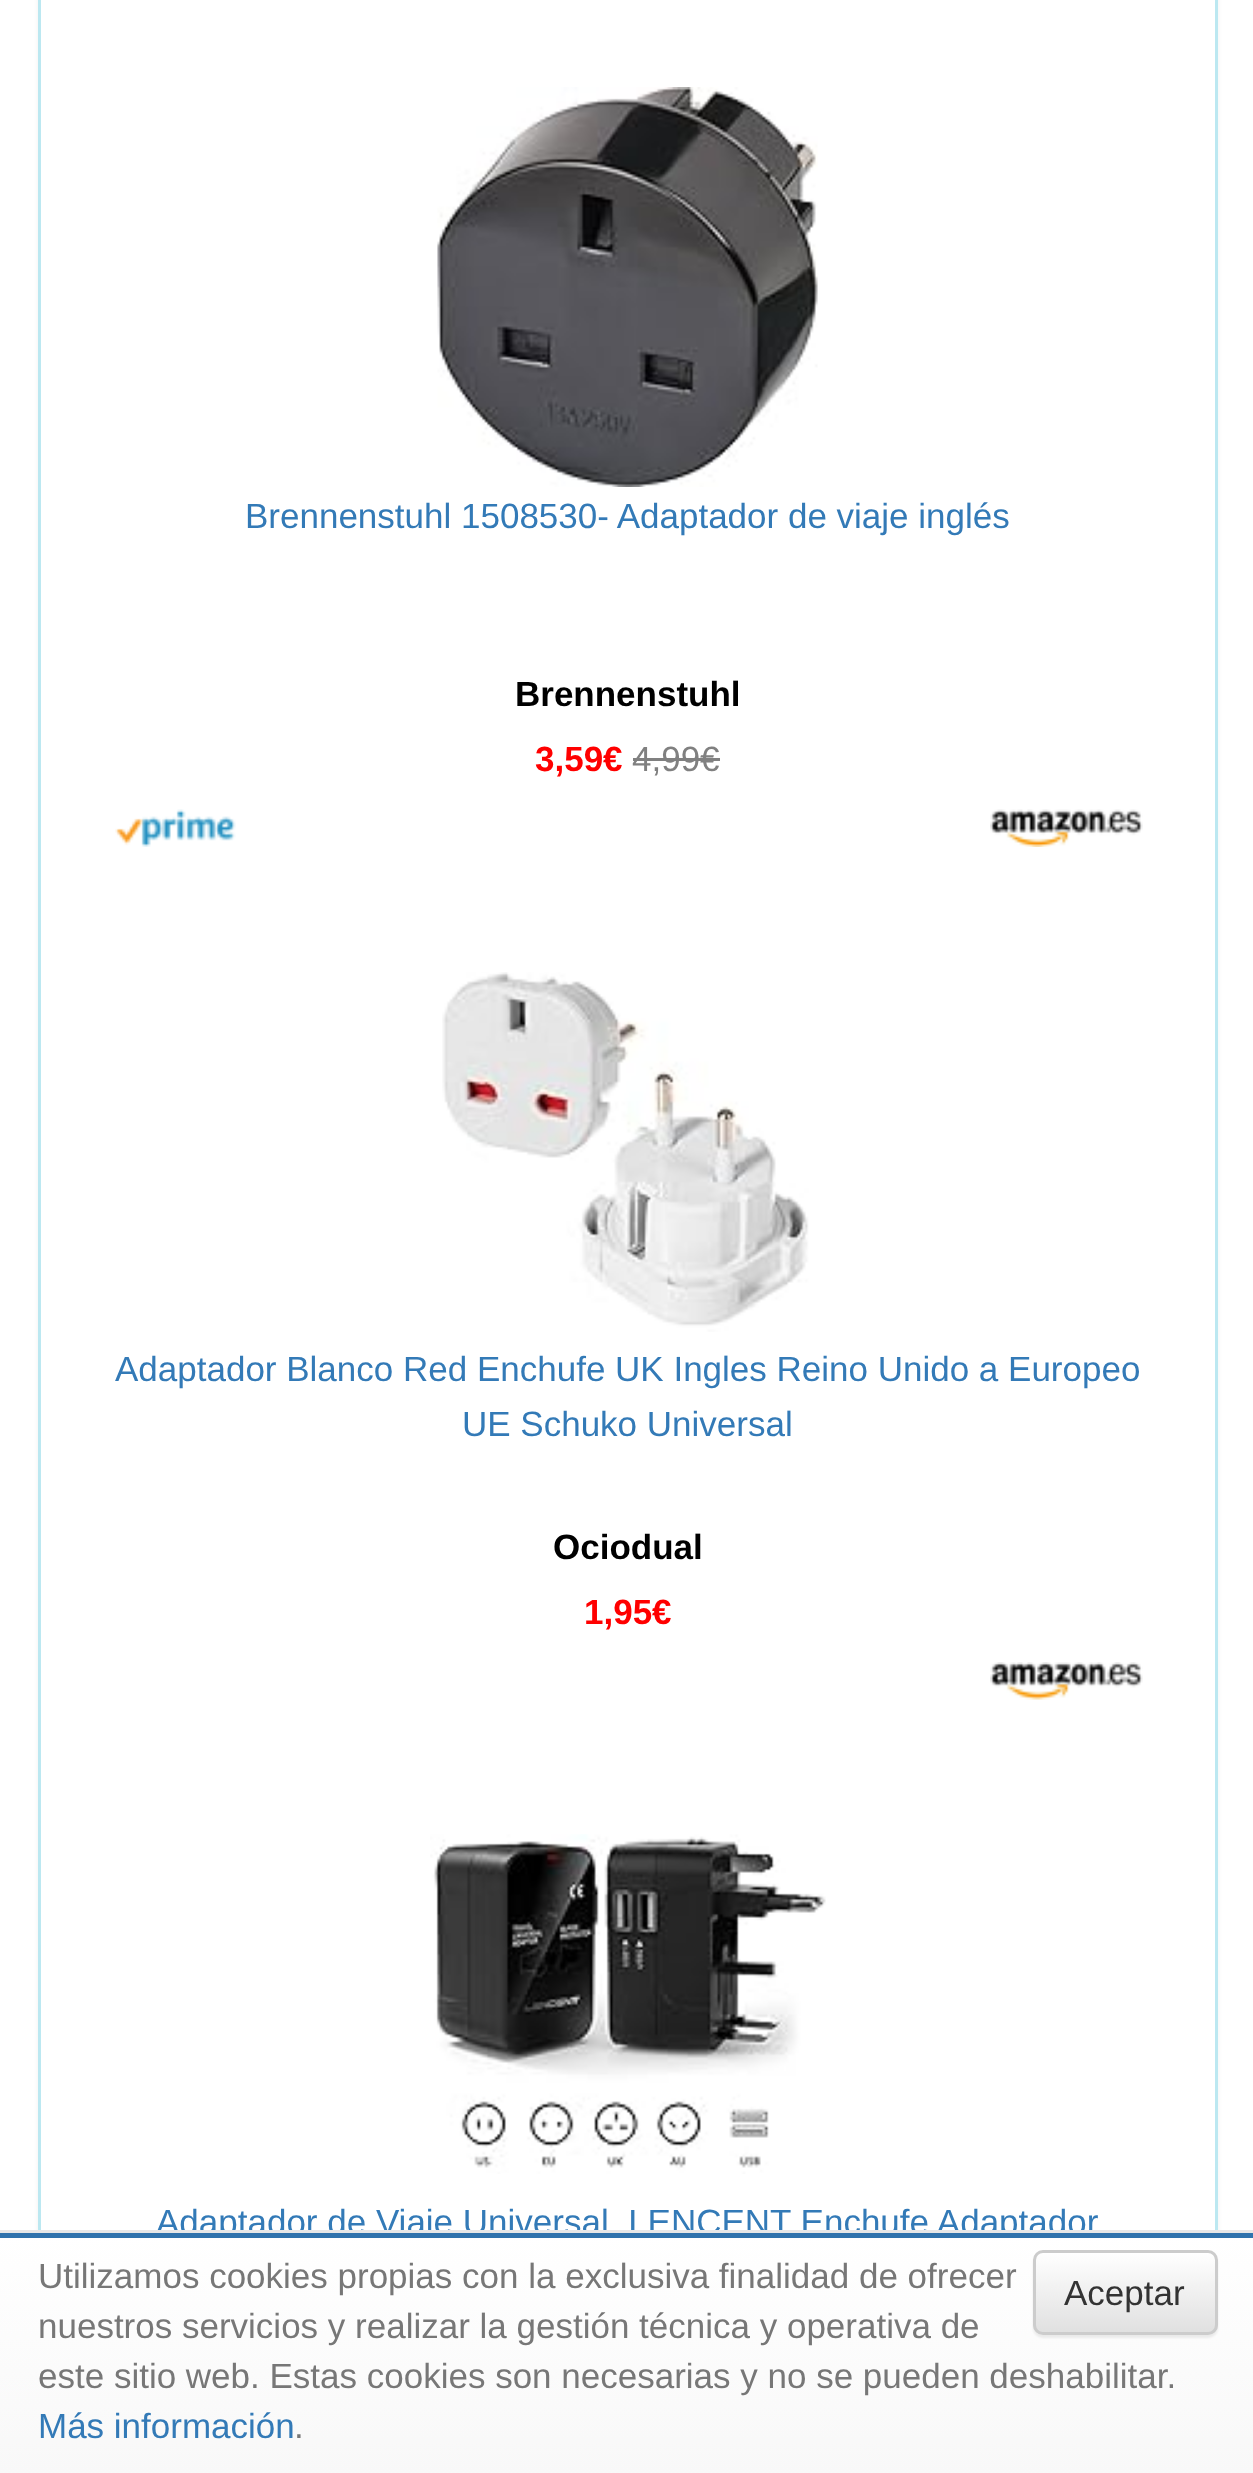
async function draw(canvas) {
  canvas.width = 1253;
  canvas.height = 2473;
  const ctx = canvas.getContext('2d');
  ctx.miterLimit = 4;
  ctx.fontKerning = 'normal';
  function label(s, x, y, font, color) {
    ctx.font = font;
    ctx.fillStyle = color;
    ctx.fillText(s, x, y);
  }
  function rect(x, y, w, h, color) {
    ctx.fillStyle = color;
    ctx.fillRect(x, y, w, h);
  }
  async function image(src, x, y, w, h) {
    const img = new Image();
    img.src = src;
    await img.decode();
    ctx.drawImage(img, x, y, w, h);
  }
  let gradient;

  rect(0, 0, 1253, 2473, '#fff');
  ctx.fillStyle = '#0000000d';
  ctx.filter = 'blur(2.5px)';
  ctx.beginPath();
  ctx.roundRect(38, -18, 1180, 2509, 10);
  ctx.fill();
  ctx.filter = 'none';
  rect(41, 0, 1174, 2230, '#fff');
  ctx.strokeStyle = '#bce8f1';
  ctx.lineWidth = 3;
  ctx.strokeRect(39.5, -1.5, 1177, 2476);
  await image('assets/img1.png', 437, 87, 381, 400);
  label('Brennenstuhl 1508530- Adaptador de viaje inglés', 245, 528, '35px Liberation Sans', '#337ab7');
  label('Brennenstuhl', 515, 706, 'bold 35px Liberation Sans', '#000');
  label('3,59€', 535, 771, 'bold 35px Liberation Sans', '#f00');
  label('4,99€', 632, 771, '35px Liberation Sans', '#808080');
  rect(633, 758, 87, 3, '#808080');
  await image('assets/img2.png', 115, 809, 121, 38);
  await image('assets/img3.png', 990, 809, 153, 38);
  await image('assets/img4.png', 442, 972, 367, 360);
  label('Adaptador Blanco Red Enchufe UK Ingles Reino Unido a Europeo', 115, 1381, '35px Liberation Sans', '#337ab7');
  label('UE Schuko Universal', 462, 1436, '35px Liberation Sans', '#337ab7');
  label('Ociodual', 553, 1559, 'bold 35px Liberation Sans', '#000');
  label('1,95€', 584, 1624, 'bold 35px Liberation Sans', '#f00');
  await image('assets/img5.png', 990, 1662, 153, 38);
  await image('assets/img6.png', 430, 1834, 396, 340);
  label('Adaptador de Viaje Universal, LENCENT Enchufe Adaptador', 156, 2234, '35px Liberation Sans', '#337ab7');
  gradient = ctx.createLinearGradient(628, 2233, 628, 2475);
  gradient.addColorStop(0, '#fff');
  gradient.addColorStop(1, '#f8f8f8');
  ctx.fillStyle = gradient;
  ctx.fillRect(0, 2238, 1253, 235);
  rect(0, 2230, 1253, 3, '#e7e7e7');
  rect(0, 2233, 1253, 5, '#3073ad');
  label('Utilizamos cookies propias con la exclusiva finalidad de ofrecer', 38, 2288, '35px Liberation Sans', '#777');
  label('nuestros servicios y realizar la gestión técnica y operativa de', 38, 2338, '35px Liberation Sans', '#777');
  label('este sitio web. Estas cookies son necesarias y no se pueden deshabilitar.', 38, 2388, '35px Liberation Sans', '#777');
  label('Más información', 38, 2438, '35px Liberation Sans', '#337ab7');
  label('.', 294, 2438, '35px Liberation Sans', '#777');
  ctx.fillStyle = '#00000012';
  ctx.filter = 'blur(1px)';
  ctx.beginPath();
  ctx.roundRect(1033, 2253, 185, 85, 10);
  ctx.fill();
  ctx.filter = 'none';
  ctx.save();
  ctx.beginPath();
  ctx.roundRect(1033, 2250, 185, 85, 10);
  ctx.clip();
  gradient = ctx.createLinearGradient(1125, 2253, 1125, 2333);
  gradient.addColorStop(0, '#fff');
  gradient.addColorStop(1, '#e0e0e0');
  ctx.fillStyle = gradient;
  ctx.fillRect(1033, 2253, 185, 80);
  ctx.restore();
  ctx.beginPath();
  ctx.roundRect(1034.5, 2251.5, 182, 82, 8.5);
  ctx.strokeStyle = '#ccc';
  ctx.stroke();
  label('Aceptar', 1064, 2305, '35px Liberation Sans', '#333');
}

draw(document.querySelector('canvas'));
